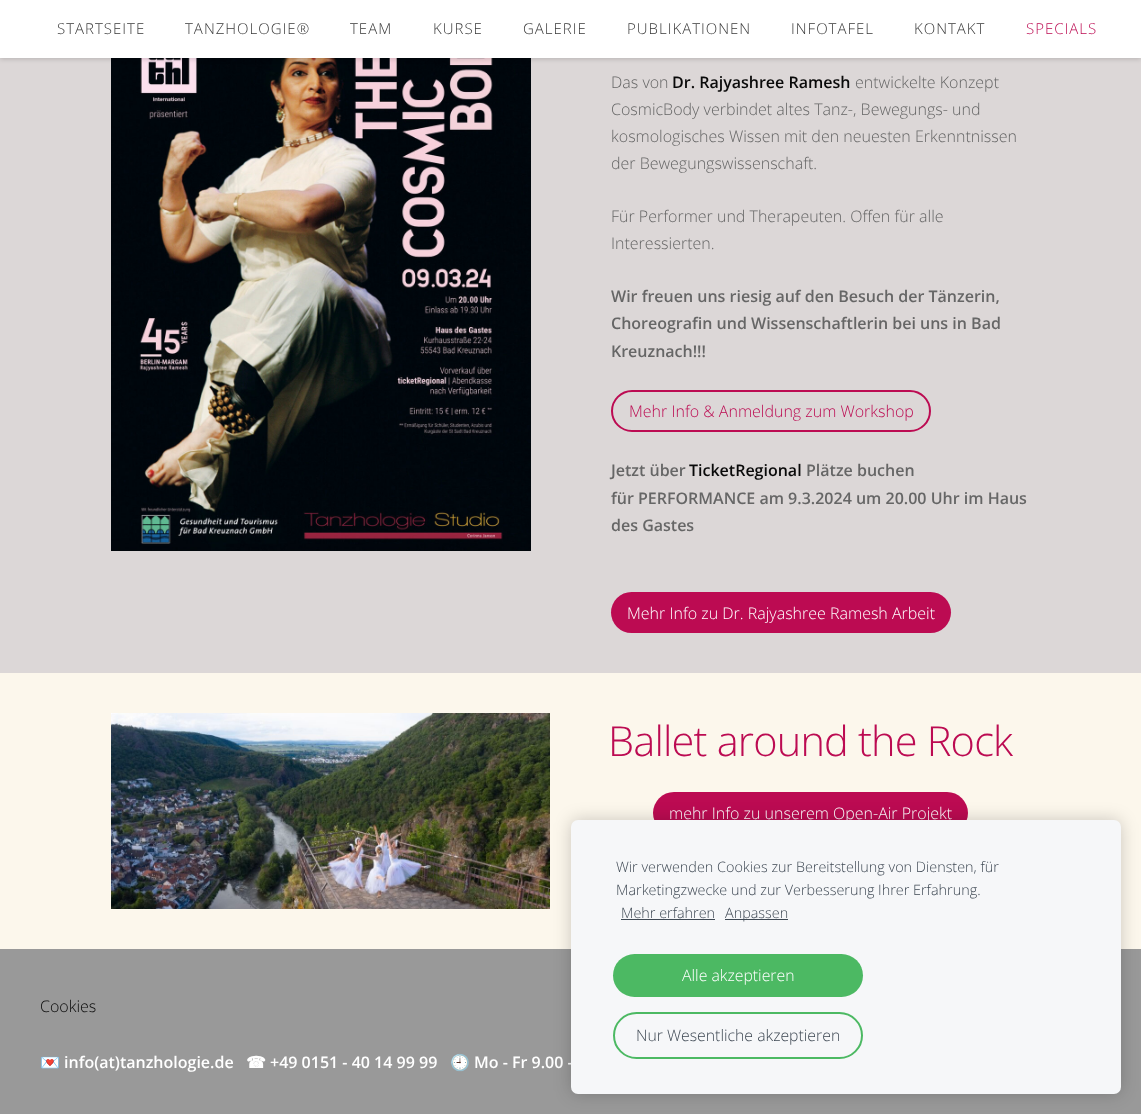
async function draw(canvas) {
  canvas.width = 1141;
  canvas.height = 1114;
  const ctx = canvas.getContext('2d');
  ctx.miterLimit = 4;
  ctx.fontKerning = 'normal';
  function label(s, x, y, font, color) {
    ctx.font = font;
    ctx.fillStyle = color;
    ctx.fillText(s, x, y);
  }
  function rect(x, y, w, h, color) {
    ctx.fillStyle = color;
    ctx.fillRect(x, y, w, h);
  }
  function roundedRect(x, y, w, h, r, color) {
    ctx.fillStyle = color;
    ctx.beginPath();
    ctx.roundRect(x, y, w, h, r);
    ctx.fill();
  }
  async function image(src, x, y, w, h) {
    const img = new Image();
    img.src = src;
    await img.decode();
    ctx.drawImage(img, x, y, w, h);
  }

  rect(0, 0, 1141, 1114, '#999');
  rect(0, 58, 1141, 615, '#dcd7d7');
  await image('assets/img1.png', 111, 58, 420, 493);
  ctx.fillStyle = '#0000002b';
  ctx.filter = 'blur(2.5px)';
  ctx.beginPath();
  ctx.rect(0, 1, 1141, 58);
  ctx.fill();
  ctx.filter = 'none';
  rect(0, 0, 1141, 58, '#fff');
  ctx.letterSpacing = '1px';
  label('STARTSEITE', 57, 34, '300 15px Open Sans', '#383838');
  label('TANZHOLOGIE®', 185, 34, '300 15px Open Sans', '#383838');
  label('TEAM', 350, 34, '300 15px Open Sans', '#383838');
  label('KURSE', 433, 34, '300 15px Open Sans', '#383838');
  label('GALERIE', 523, 34, '300 15px Open Sans', '#383838');
  label('PUBLIKATIONEN', 627, 34, '300 15px Open Sans', '#383838');
  label('INFOTAFEL', 791, 34, '300 15px Open Sans', '#383838');
  label('KONTAKT', 914, 34, '300 15px Open Sans', '#383838');
  label('SPECIALS', 1026, 34, '300 15px Open Sans', '#bc0b52');
  ctx.letterSpacing = '0px';
  label('Das von', 611, 88, '300 16px Open Sans', '#666');
  label('Dr. Rajyashree Ramesh', 672, 88, '600 16px Open Sans', '#090909');
  label('entwickelte Konzept', 855, 88, '300 16px Open Sans', '#666');
  label('CosmicBody verbindet altes Tanz-, Bewegungs- und', 611, 115, '300 16px Open Sans', '#666');
  label('kosmologisches Wissen mit den neuesten Erkenntnissen', 611, 142, '300 16px Open Sans', '#666');
  label('der Bewegungswissenschaft.', 611, 169, '300 16px Open Sans', '#666');
  label('Für Performer und Therapeuten. Offen für alle', 611, 222, '300 16px Open Sans', '#666');
  label('Interessierten.', 611, 249, '300 16px Open Sans', '#666');
  label('Wir freuen uns riesig auf den Besuch der Tänzerin,', 611, 302, '600 16px Open Sans', '#666');
  label('Choreografin und Wissenschaftlerin bei uns in Bad', 611, 329, '600 16px Open Sans', '#666');
  label('Kreuznach!!!', 611, 357, '600 16px Open Sans', '#666');
  ctx.beginPath();
  ctx.roundRect(612, 391, 318, 40, 20);
  ctx.strokeStyle = '#bc0b52';
  ctx.lineWidth = 2;
  ctx.stroke();
  label('Mehr Info & Anmeldung zum Workshop', 629, 417, '300 16px Open Sans', '#bc0b52');
  label('Jetzt über', 611, 476, '600 16px Open Sans', '#666');
  label('TicketRegional', 689, 476, '600 16px Open Sans', '#090909');
  label('Plätze buchen', 806, 476, '600 16px Open Sans', '#666');
  label('für PERFORMANCE am 9.3.2024 um 20.00 Uhr im Haus', 611, 504, '600 16px Open Sans', '#666');
  label('des Gastes', 611, 531, '600 16px Open Sans', '#666');
  roundedRect(611, 592, 340, 41, 20.5, '#bc0b52');
  label('Mehr Info zu Dr. Rajyashree Ramesh Arbeit', 627, 619, '300 16px Open Sans', '#fff');
  rect(0, 673, 1141, 276, '#fcf7ec');
  await image('assets/img2.png', 111, 713, 439, 196);
  ctx.letterSpacing = '-0.8px';
  label('Ballet around the Rock', 608, 756, '300 41.5px Open Sans', '#bc0b52');
  roundedRect(653, 792, 315, 42, 21, '#bc0b52');
  ctx.letterSpacing = '0px';
  label('mehr Info zu unserem Open-Air Projekt', 669, 819, '300 16px Open Sans', '#fff');
  label('Cookies', 40, 1012, '300 16px Open Sans', '#090909');
  label('💌', 40, 1068, 'bold 16px Noto Color Emoji', '#fff');
  label('info(at)tanzhologie.de', 64, 1068, '600 16px Open Sans', '#fff');
  label('☎', 246, 1068, 'bold 16px DejaVu Sans', '#fff');
  label('+49 0151 - 40 14 99 99', 270, 1068, '600 16px Open Sans', '#fff');
  label('🕘', 450, 1068, 'bold 16px Noto Color Emoji', '#fff');
  label('Mo - Fr 9.00 -', 474, 1068, '600 16px Open Sans', '#fff');
  ctx.fillStyle = '#00000033';
  ctx.filter = 'blur(8.5px)';
  ctx.beginPath();
  ctx.roundRect(571, 820, 550, 274, 7);
  ctx.fill();
  ctx.filter = 'none';
  roundedRect(571, 820, 550, 274, 7, '#f6f7f9');
  label('Wir verwenden Cookies zur Bereitstellung von Diensten, für', 616, 872, '300 14.4px Open Sans', '#3f4954');
  label('Marketingzwecke und zur Verbesserung Ihrer Erfahrung.', 616, 895, '300 14.4px Open Sans', '#3f4954');
  label('Mehr erfahren', 621, 918, '300 14.4px Open Sans', '#3f4954');
  rect(621, 919, 94, 1, '#3f4954');
  rect(725, 919, 63, 1, '#3f4954');
  label('Anpassen', 725, 918, '300 14.4px Open Sans', '#3f4954');
  roundedRect(613, 954, 250, 43, 21.5, '#4cb963');
  label('Alle akzeptieren', 682, 981, '300 15.8px Open Sans', '#fff');
  ctx.beginPath();
  ctx.roundRect(614, 1013, 248, 45, 22.5);
  ctx.strokeStyle = '#4cb963';
  ctx.stroke();
  label('Nur Wesentliche akzeptieren', 636, 1041, '300 15.8px Open Sans', '#3f4954');
}

draw(document.querySelector('canvas'));
